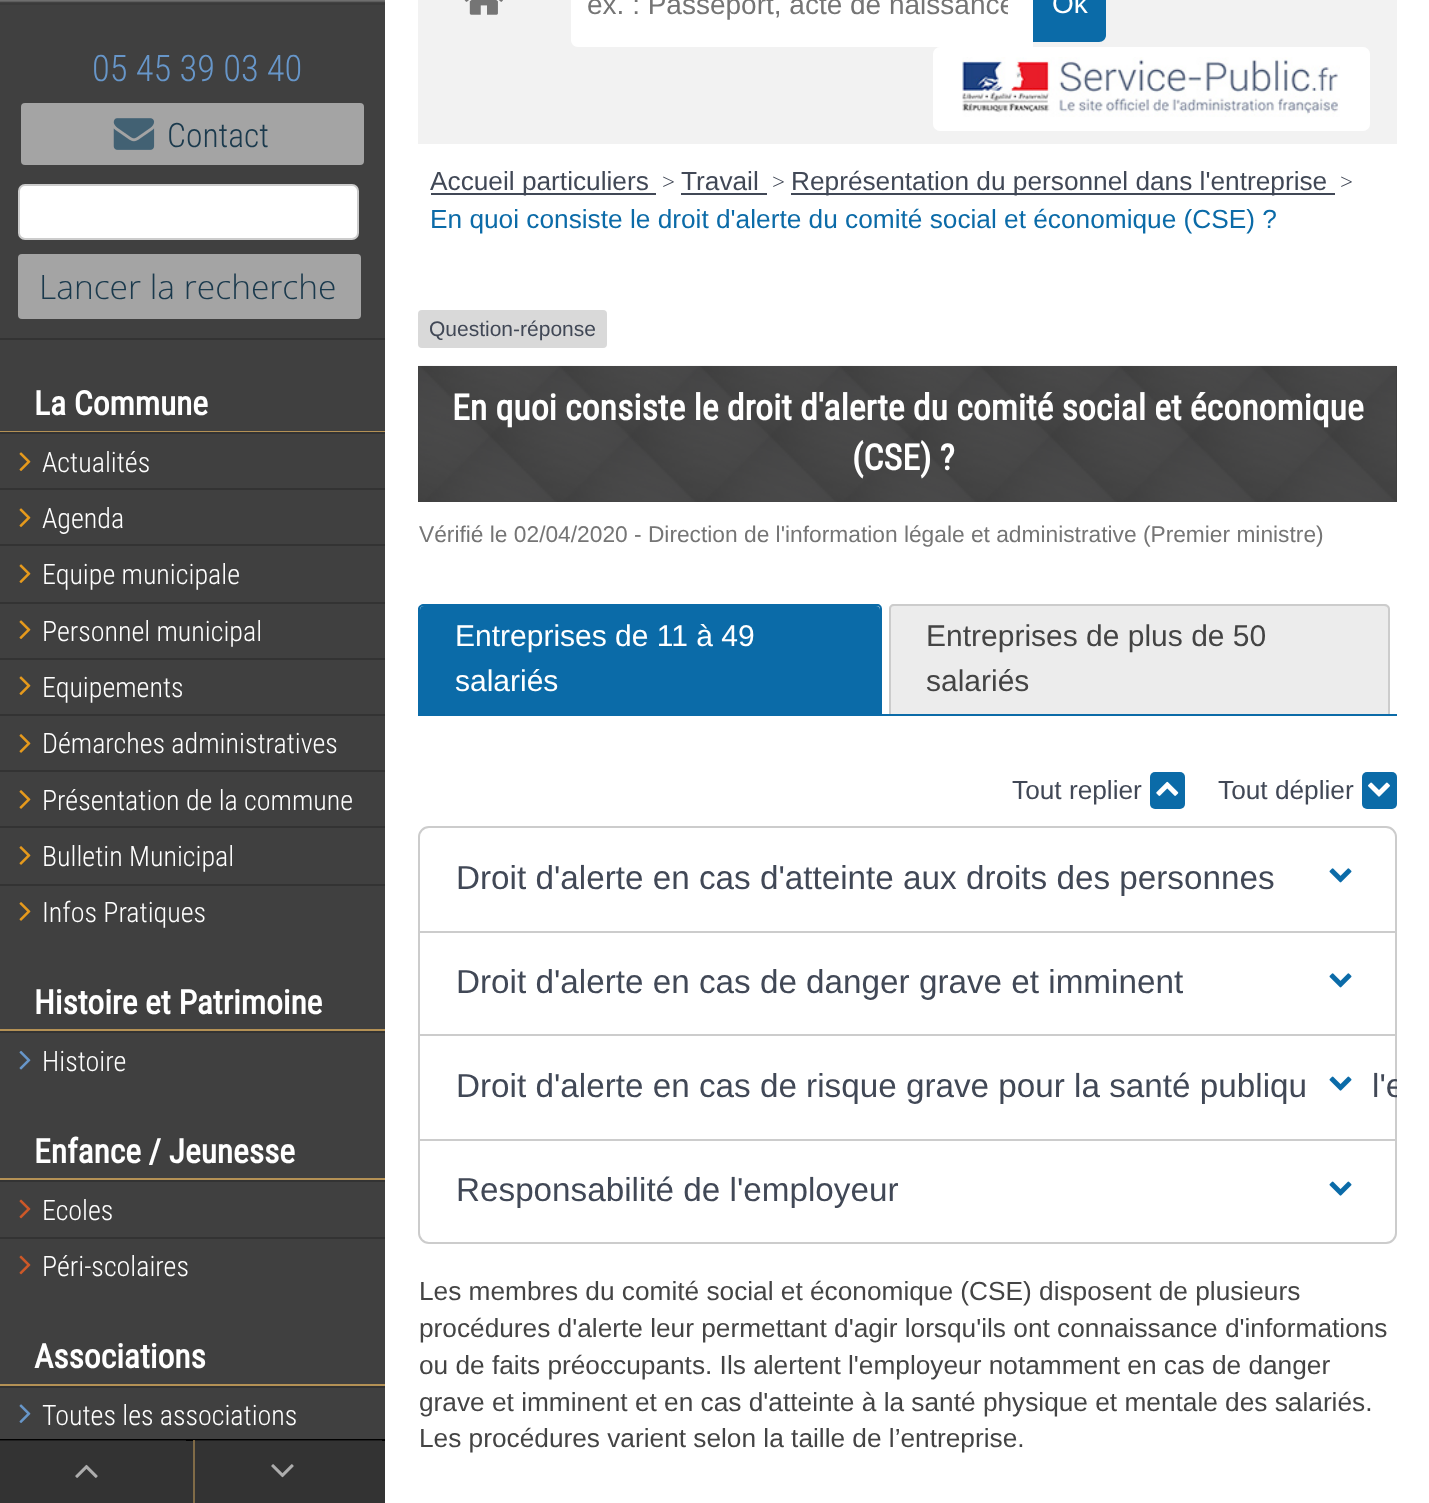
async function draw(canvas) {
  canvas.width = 1429;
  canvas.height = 1503;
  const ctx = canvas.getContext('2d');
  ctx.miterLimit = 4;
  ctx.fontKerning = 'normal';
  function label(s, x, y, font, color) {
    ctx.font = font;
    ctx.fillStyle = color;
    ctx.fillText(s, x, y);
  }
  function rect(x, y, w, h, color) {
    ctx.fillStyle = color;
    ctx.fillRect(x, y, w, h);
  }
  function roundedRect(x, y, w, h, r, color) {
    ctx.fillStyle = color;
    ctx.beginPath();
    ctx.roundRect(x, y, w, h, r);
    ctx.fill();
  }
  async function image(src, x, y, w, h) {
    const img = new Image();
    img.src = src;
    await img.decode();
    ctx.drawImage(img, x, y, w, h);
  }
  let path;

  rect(0, 0, 1429, 1503, '#fff');
  rect(0, 5, 385, 1434, '#404040');
  await image('assets/img1.png', 0, 0, 385, 5);
  label('05 45 39 03 40', 92, 81, '300 36.5px Roboto Condensed', '#6796c9');
  roundedRect(21, 103, 343, 62, 4, '#a4a4a4');
  await image('assets/img2.png', 113, 118, 42, 32);
  label('Contact', 167, 147, '300 33.5px Roboto Condensed', '#1a394c');
  ctx.fillStyle = '#fff';
  ctx.beginPath();
  ctx.roundRect(19, 185, 339, 54, 6);
  ctx.fill();
  ctx.strokeStyle = '#ccc';
  ctx.lineWidth = 2;
  ctx.stroke();
  roundedRect(18, 254, 343, 65, 4, '#a4a4a4');
  label('Lancer la recherche', 39, 299, '300 33.5px Open Sans', '#1a394c');
  rect(0, 338, 385, 2, '#333');
  rect(0, 431, 385, 1, '#b49155');
  label('La Commune', 34, 415, 'bold 33.5px Roboto Condensed', '#fff');
  rect(0, 432, 385, 2, '#333');
  await image('assets/img3.png', 19, 452, 12, 19);
  label('Actualités', 42, 472, '300 28px Roboto Condensed', '#fff');
  rect(0, 488, 385, 2, '#333');
  await image('assets/img3.png', 19, 508, 12, 19);
  label('Agenda', 42, 528, '300 28px Roboto Condensed', '#fff');
  rect(0, 544, 385, 2, '#333');
  await image('assets/img3.png', 19, 564, 12, 19);
  label('Equipe municipale', 42, 584, '300 28px Roboto Condensed', '#fff');
  rect(0, 602, 385, 2, '#333');
  await image('assets/img3.png', 19, 620, 12, 19);
  label('Personnel municipal', 42, 641, '300 28px Roboto Condensed', '#fff');
  rect(0, 658, 385, 2, '#333');
  await image('assets/img3.png', 19, 676, 12, 19);
  label('Equipements', 42, 697, '300 28px Roboto Condensed', '#fff');
  rect(0, 714, 385, 2, '#333');
  await image('assets/img4.png', 19, 734, 12, 19);
  label('Démarches administratives', 42, 753, '300 28px Roboto Condensed', '#fff');
  rect(0, 770, 385, 2, '#333');
  await image('assets/img4.png', 19, 790, 12, 19);
  label('Présentation de la commune', 42, 810, '300 28px Roboto Condensed', '#fff');
  rect(0, 826, 385, 2, '#333');
  await image('assets/img4.png', 19, 846, 12, 19);
  label('Bulletin Municipal', 42, 866, '300 28px Roboto Condensed', '#fff');
  rect(0, 884, 385, 2, '#333');
  await image('assets/img4.png', 19, 902, 12, 19);
  label('Infos Pratiques', 42, 922, '300 28px Roboto Condensed', '#fff');
  rect(0, 1029, 385, 2, '#b49155');
  label('Histoire et Patrimoine', 34, 1014, 'bold 33.5px Roboto Condensed', '#fff');
  rect(0, 1031, 385, 2, '#333');
  await image('assets/img5.png', 19, 1050, 12, 20);
  label('Histoire', 42, 1071, '300 28px Roboto Condensed', '#fff');
  rect(0, 1178, 385, 2, '#b49155');
  label('Enfance / Jeunesse', 34, 1163, 'bold 33.5px Roboto Condensed', '#fff');
  rect(0, 1180, 385, 2, '#333');
  await image('assets/img6.png', 19, 1199, 12, 20);
  label('Ecoles', 42, 1220, '300 28px Roboto Condensed', '#fff');
  rect(0, 1237, 385, 2, '#333');
  await image('assets/img6.png', 19, 1255, 12, 20);
  label('Péri-scolaires', 42, 1276, '300 28px Roboto Condensed', '#fff');
  rect(0, 1384, 385, 2, '#b49155');
  label('Associations', 34, 1368, 'bold 33.5px Roboto Condensed', '#fff');
  rect(0, 1386, 385, 2, '#333');
  await image('assets/img7.png', 19, 1404, 12, 19);
  label('Toutes les associations', 42, 1425, '300 28px Roboto Condensed', '#fff');
  rect(0, 1441, 385, 62, '#333');
  rect(193, 1440, 2, 63, '#806b47');
  rect(0, 1439, 385, 2, '#000');
  rect(193, 1440, 189, 1, '#1f1f1f');
  rect(193, 1440, 2, 1, '#78633f');
  rect(0, 1440, 186, 1, '#1f1f1f');
  await image('assets/img8.png', 75, 1464, 23, 14);
  await image('assets/img9.png', 271, 1464, 23, 14);
  rect(418, 0, 979, 144, '#f2f2f2');
  await image('assets/img10.png', 464, 0, 39, 15);
  ctx.fillStyle = '#fff';
  path = new Path2D('M578-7H1033V47H578C574 47 571 44 571 40V0C571-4 574-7 578-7Z');
  ctx.fill(path);
  ctx.save();
  ctx.beginPath();
  ctx.rect(588, 0, 420, 21);
  ctx.clip();
  label('ex. : Passeport, acte de naissance', 587, 14, '28px Liberation Sans', '#757575');
  ctx.restore();
  ctx.fillStyle = '#0b6ba8';
  path = new Path2D('M1033-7H1099C1103-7 1106-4 1106 0V35C1106 39 1103 42 1099 42H1033Z');
  ctx.fill(path);
  label('Ok', 1052, 13, '28px Liberation Sans', '#fff');
  roundedRect(933, 47, 437, 84, 7, '#fff');
  await image('assets/img11.png', 962, 57, 378, 60);
  rect(431, 193, 225, 2, '#414856');
  label('Accueil particuliers', 430, 190, '26.25px Liberation Sans', '#414856');
  label('>', 662, 190, '300 22.75px Open Sans', '#414856');
  label('Travail', 681, 190, '26.25px Liberation Sans', '#414856');
  rect(681, 193, 86, 2, '#414856');
  label('>', 772, 190, '300 22.75px Open Sans', '#414856');
  rect(791, 193, 544, 2, '#414856');
  label('Représentation du personnel dans l\'entreprise', 791, 190, '26.25px Liberation Sans', '#414856');
  label('>', 1340, 190, '300 22.75px Open Sans', '#414856');
  label('En quoi consiste le droit d\'alerte du comité social et économique (CSE) ?', 430, 228, '26.25px Liberation Sans', '#0b6ba8');
  roundedRect(418, 310, 189, 38, 4, '#d9d9d9');
  label('Question-réponse', 429, 336, '21px Liberation Sans', '#414856');
  rect(418, 366, 979, 136, '#404040');
  await image('assets/img12.png', 418, 365, 978, 137);
  label('En quoi consiste le droit d\'alerte du comité social et économique', 452, 420, 'bold 35.85px Roboto Condensed', '#fff');
  label('(CSE) ?', 852, 470, 'bold 35.85px Roboto Condensed', '#fff');
  label('Vérifié le 02/04/2020 - Direction de l\'information légale et administrative (Premier ministre)', 419, 542, '22.75px Liberation Sans', '#757575');
  ctx.fillStyle = '#0b6ba8';
  ctx.beginPath();
  ctx.roundRect(420, 606, 460, 108, [4, 4, 0, 0]);
  ctx.fill();
  path = new Path2D('M424 604H877C880 604 882 606 882 609V714H418V609C418 606 421 604 424 604ZM424 606H877C879 606 880 607 880 609V714H420V609C420 607 422 606 424 606Z');
  ctx.fill(path, 'evenodd');
  label('Entreprises de 11 à 49', 455, 646, '30px Liberation Sans', '#fff');
  label('salariés', 455, 691, '30px Liberation Sans', '#fff');
  ctx.fillStyle = '#ececec';
  ctx.beginPath();
  ctx.roundRect(889, 604, 501, 110, [5, 5, 0, 0]);
  ctx.fill();
  ctx.fillStyle = '#ccc';
  path = new Path2D('M894 604H1384C1387 604 1390 606 1390 609V714H889V609C889 606 891 604 894 604ZM894 606H1384C1386 606 1388 607 1388 609V714H891V609C891 607 892 606 894 606Z');
  ctx.fill(path, 'evenodd');
  label('Entreprises de plus de 50', 926, 646, '30px Liberation Sans', '#444');
  label('salariés', 926, 691, '30px Liberation Sans', '#444');
  rect(418, 714, 979, 2, '#0b6ba8');
  label('Tout replier', 1012, 799, '26.25px Liberation Sans', '#414856');
  roundedRect(1150, 772, 35, 37, 5, '#0b6ba8');
  await image('assets/img13.png', 1156, 781, 23, 15);
  label('Tout déplier', 1218, 799, '26.25px Liberation Sans', '#414856');
  roundedRect(1362, 772, 35, 37, 5, '#0b6ba8');
  await image('assets/img14.png', 1368, 782, 22, 15);
  ctx.beginPath();
  ctx.roundRect(419, 827, 977, 416, 10);
  ctx.stroke();
  label('Droit d\'alerte en cas d\'atteinte aux droits des personnes', 456, 889, '33.25px Liberation Sans', '#414856');
  await image('assets/img15.png', 1329, 868, 23, 15);
  rect(420, 931, 975, 2, '#ccc');
  label('Droit d\'alerte en cas de danger grave et imminent', 456, 993, '33.25px Liberation Sans', '#414856');
  await image('assets/img15.png', 1329, 973, 23, 15);
  rect(420, 1034, 975, 2, '#ccc');
  label('Droit d\'alerte en cas de risque grave pour la santé publiqu', 456, 1097, '33.25px Liberation Sans', '#414856');
  ctx.save();
  ctx.beginPath();
  ctx.rect(418, 0, 979, 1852);
  ctx.clip();
  label('l\'e', 1372, 1097, '33.25px Liberation Sans', '#414856');
  ctx.restore();
  await image('assets/img16.png', 1329, 1076, 23, 15);
  rect(420, 1139, 975, 2, '#ccc');
  label('Responsabilité de l\'employeur', 456, 1201, '33.25px Liberation Sans', '#414856');
  await image('assets/img16.png', 1329, 1181, 23, 15);
  label('Les membres du comité social et économique (CSE) disposent de plusieurs', 419, 1300, '26.25px Liberation Sans', '#444');
  label('procédures d\'alerte leur permettant d\'agir lorsqu\'ils ont connaissance d\'informations', 419, 1337, '26.25px Liberation Sans', '#444');
  label('ou de faits préoccupants. Ils alertent l\'employeur notamment en cas de danger', 419, 1374, '26.25px Liberation Sans', '#444');
  label('grave et imminent et en cas d\'atteinte à la santé physique et mentale des salariés.', 419, 1411, '26.25px Liberation Sans', '#444');
  label('Les procédures varient selon la taille de l’entreprise.', 419, 1447, '26.25px Liberation Sans', '#444');
}

draw(document.querySelector('canvas'));
